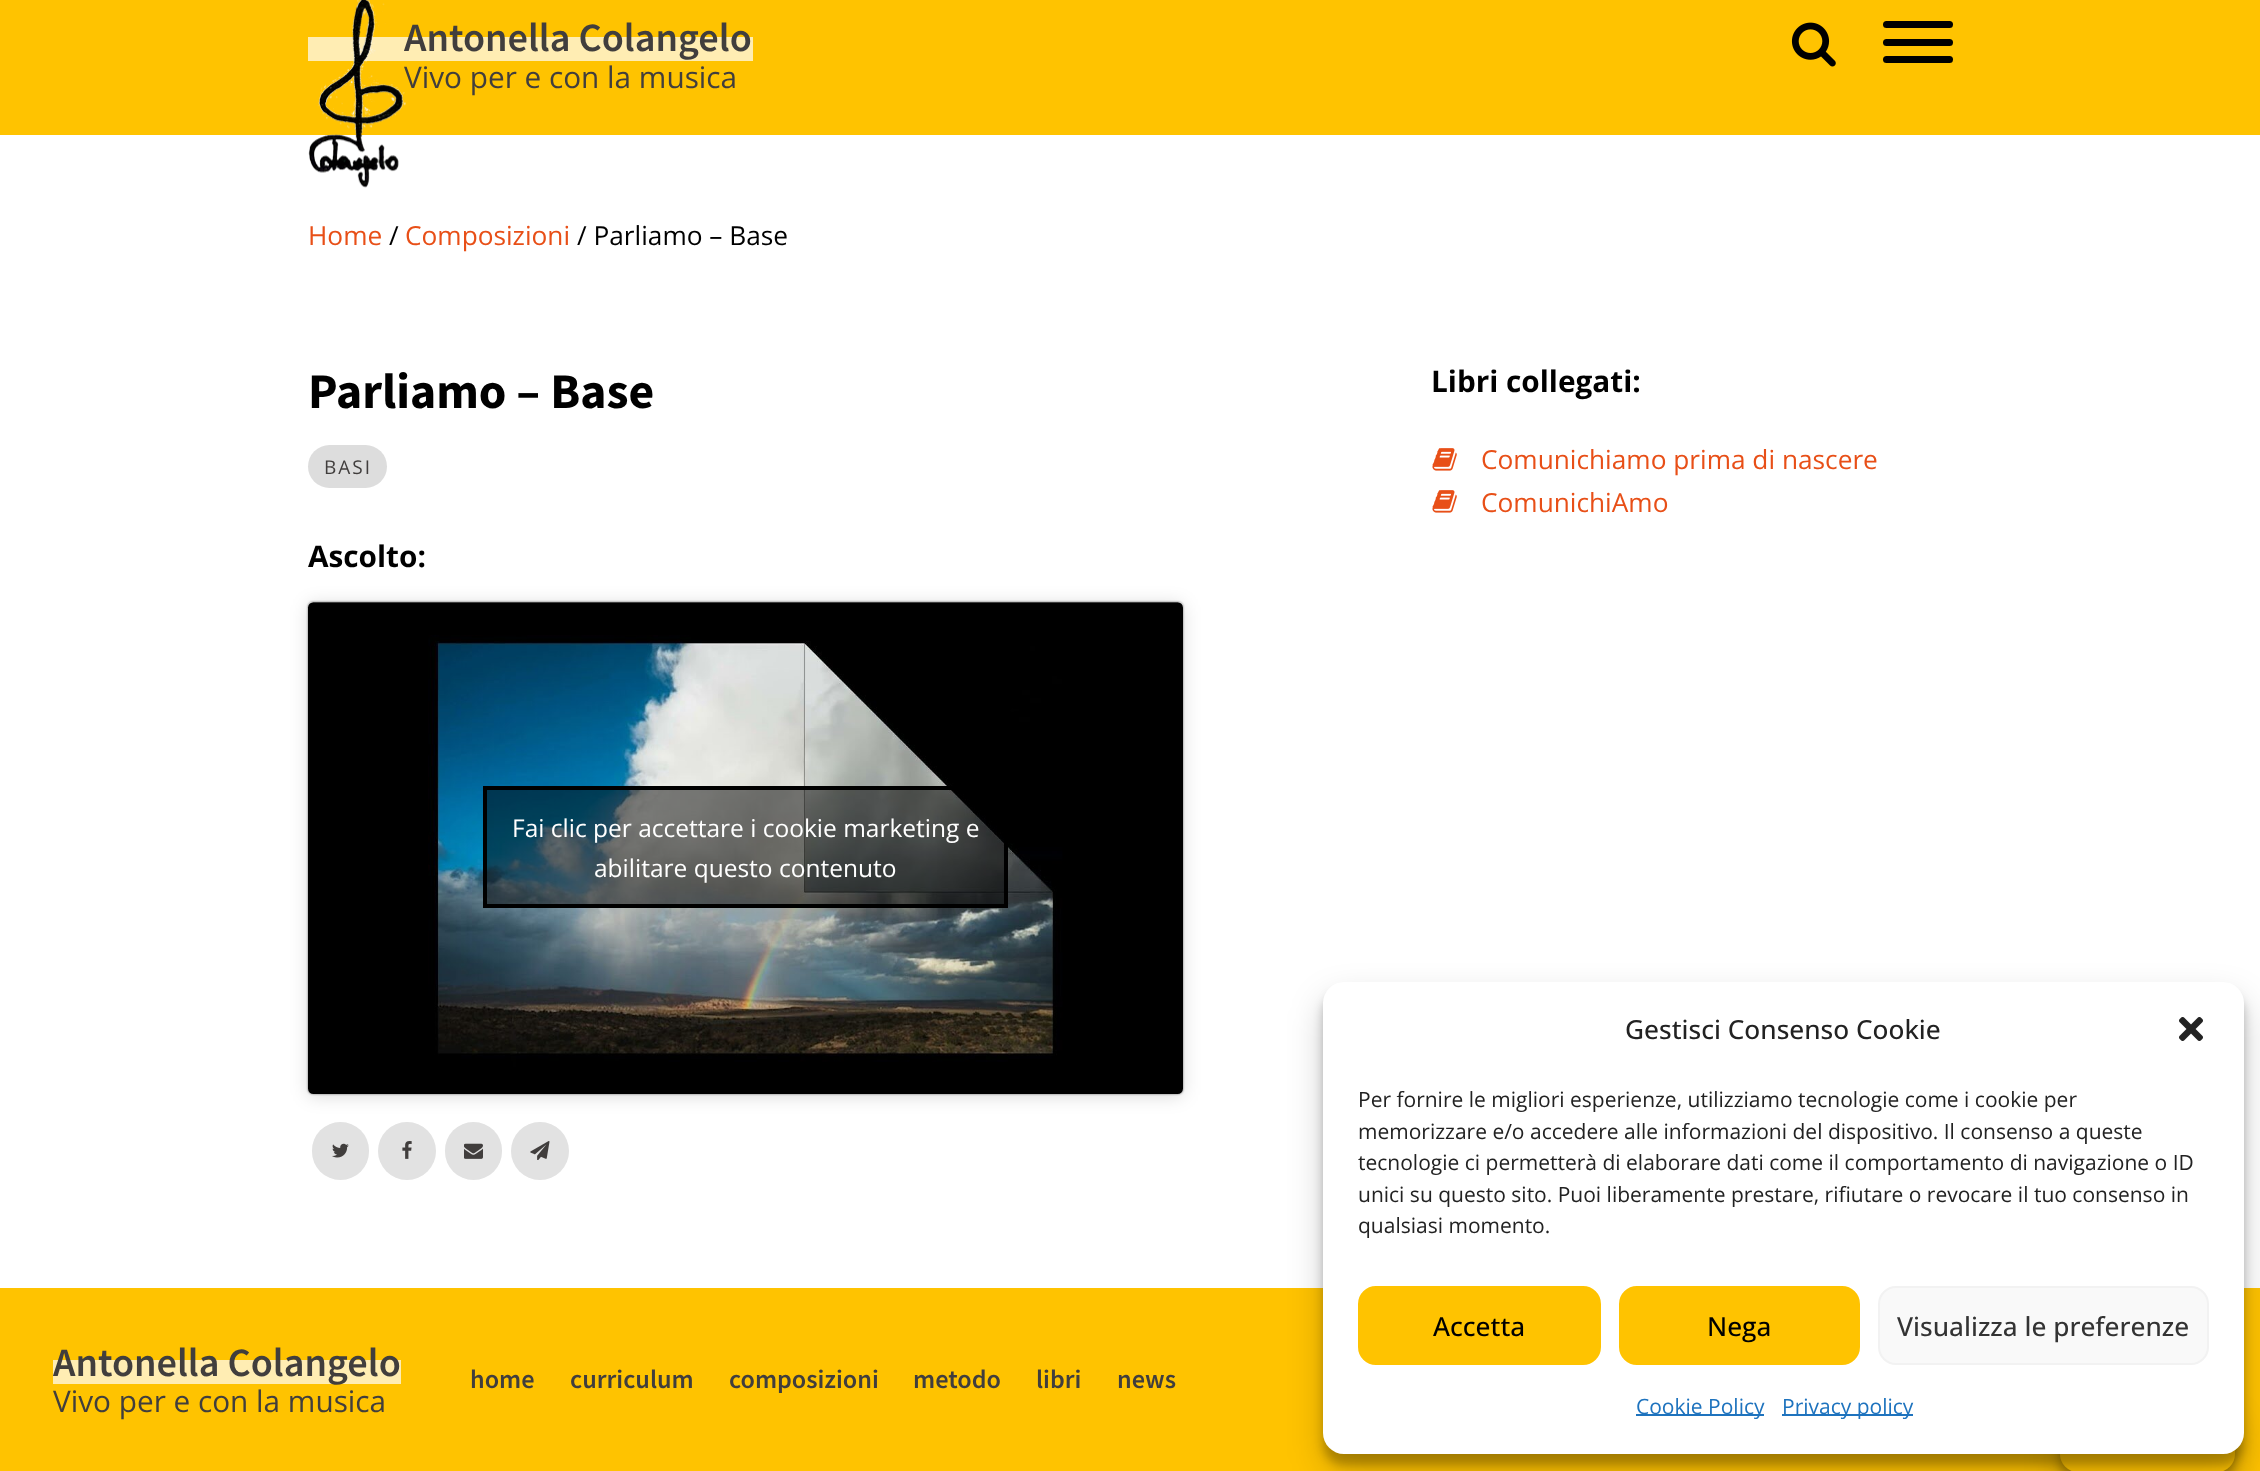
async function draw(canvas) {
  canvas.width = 2260;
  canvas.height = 1471;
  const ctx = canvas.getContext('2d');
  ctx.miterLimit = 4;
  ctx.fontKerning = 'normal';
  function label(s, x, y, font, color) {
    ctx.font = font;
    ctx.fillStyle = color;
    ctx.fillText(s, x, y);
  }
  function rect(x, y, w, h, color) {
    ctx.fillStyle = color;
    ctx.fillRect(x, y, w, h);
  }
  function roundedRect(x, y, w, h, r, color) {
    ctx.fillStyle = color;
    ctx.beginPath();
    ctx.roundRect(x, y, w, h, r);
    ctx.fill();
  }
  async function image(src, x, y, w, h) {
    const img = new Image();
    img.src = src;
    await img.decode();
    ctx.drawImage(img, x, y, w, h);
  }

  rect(0, 0, 2260, 1471, '#fff');
  rect(0, 0, 2260, 135, '#ffc300');
  rect(308, 37, 445, 24, '#ffedb3');
  label('Antonella Colangelo', 404, 51, '600 40.25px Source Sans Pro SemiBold', '#413e3d');
  label('Vivo per e con la musica', 404, 88, '29.75px Open Sans', '#413e3d');
  await image('assets/img1.png', 308, 0, 98, 188);
  await image('assets/img2.png', 1791, 22, 45, 45);
  roundedRect(1883, 21, 70, 7, 3.5, '#000');
  roundedRect(1883, 39, 70, 7, 3.5, '#000');
  roundedRect(1883, 56, 70, 7, 3.5, '#000');
  label('Home', 308, 245, '26.25px Open Sans', '#e84f17');
  label('/', 389, 245, '26.25px Open Sans', '#000');
  label('Composizioni', 405, 245, '26.25px Open Sans', '#e84f17');
  label('/ Parliamo – Base', 577, 245, '26.25px Open Sans', '#000');
  label('Parliamo – Base', 308, 408, 'bold 49.75px Source Sans Pro', '#000');
  roundedRect(308, 445, 79, 43, 21.5, '#ddd');
  ctx.letterSpacing = '2px';
  label('BASI', 324, 474, '19px Open Sans', '#413e3d');
  ctx.letterSpacing = '0px';
  label('Ascolto:', 308, 567, 'bold 29.75px Open Sans', '#000');
  roundedRect(312, 1122, 57, 58, 28.5, '#ddd');
  roundedRect(312, 1122, 57, 58, 28.5, '#ffffff26');
  ctx.fillStyle = '#ddd';
  ctx.beginPath();
  ctx.arc(407, 1151, 29, 0, 2 * Math.PI);
  ctx.fill();
  ctx.fillStyle = '#ffffff26';
  ctx.beginPath();
  ctx.arc(407, 1151, 29, 0, 2 * Math.PI);
  ctx.fill();
  roundedRect(445, 1122, 57, 58, 28.5, '#ddd');
  roundedRect(445, 1122, 57, 58, 28.5, '#ffffff26');
  ctx.fillStyle = '#ddd';
  ctx.beginPath();
  ctx.arc(540, 1151, 29, 0, 2 * Math.PI);
  ctx.fill();
  ctx.fillStyle = '#ffffff26';
  ctx.beginPath();
  ctx.arc(540, 1151, 29, 0, 2 * Math.PI);
  ctx.fill();
  ctx.fillStyle = '#00000026';
  ctx.filter = 'blur(9px)';
  ctx.beginPath();
  ctx.roundRect(308, 604, 875, 492, 5);
  ctx.fill();
  ctx.filter = 'none';
  ctx.fillStyle = '#00000080';
  ctx.filter = 'blur(1px)';
  ctx.beginPath();
  ctx.roundRect(308, 602, 875, 492, 5);
  ctx.fill();
  ctx.filter = 'none';
  roundedRect(308, 602, 875, 492, 5, '#fff');
  await image('assets/img3.png', 307, 602, 876, 492);
  ctx.fillStyle = '#00000080';
  ctx.beginPath();
  ctx.rect(485, 788, 521, 118);
  ctx.fill();
  ctx.strokeStyle = '#000';
  ctx.lineWidth = 4;
  ctx.stroke();
  label('Fai clic per accettare i cookie marketing e', 512, 837, '24.5px Open Sans', '#fff');
  label('abilitare questo contenuto', 594, 877, '24.5px Open Sans', '#fff');
  await image('assets/img4.png', 332, 1143, 17, 15);
  await image('assets/img5.png', 402, 1141, 10, 18);
  await image('assets/img6.png', 464, 1143, 19, 16);
  await image('assets/img7.png', 530, 1141, 20, 19);
  label('Libri collegati:', 1431, 392, 'bold 29.75px Open Sans', '#000');
  await image('assets/img8.png', 1432, 448, 25, 23);
  label('Comunichiamo prima di nascere', 1481, 469, '26.25px Open Sans', '#e84f17');
  await image('assets/img8.png', 1432, 490, 25, 23);
  label('ComunichiAmo', 1481, 512, '26.25px Open Sans', '#e84f17');
  rect(0, 1288, 2260, 183, '#ffc300');
  rect(53, 1360, 348, 24, '#ffedb3');
  label('Antonella Colangelo', 53, 1376, '600 40.25px Source Sans Pro SemiBold', '#413e3d');
  label('Vivo per e con la musica', 53, 1412, '29.75px Open Sans', '#413e3d');
  label('home', 470, 1388, '600 26.25px Source Sans Pro SemiBold', '#413e3d');
  label('curriculum', 570, 1388, '600 26.25px Source Sans Pro SemiBold', '#413e3d');
  label('composizioni', 729, 1388, '600 26.25px Source Sans Pro SemiBold', '#413e3d');
  label('metodo', 913, 1388, '600 26.25px Source Sans Pro SemiBold', '#413e3d');
  label('libri', 1036, 1388, '600 26.25px Source Sans Pro SemiBold', '#413e3d');
  label('news', 1117, 1388, '600 26.25px Source Sans Pro SemiBold', '#413e3d');
  ctx.fillStyle = '#0000003b';
  ctx.filter = 'blur(5px)';
  ctx.beginPath();
  ctx.roundRect(2060, 1412, 175, 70, 18);
  ctx.fill();
  ctx.filter = 'none';
  ctx.fillStyle = '#00000030';
  ctx.filter = 'blur(17.5px)';
  ctx.beginPath();
  ctx.roundRect(2060, 1419, 175, 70, 18);
  ctx.fill();
  ctx.filter = 'none';
  roundedRect(2060, 1402, 175, 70, 18, '#ffc300');
  ctx.fillStyle = '#0000003b';
  ctx.filter = 'blur(5px)';
  ctx.beginPath();
  ctx.roundRect(1323, 992, 921, 473, 21);
  ctx.fill();
  ctx.filter = 'none';
  ctx.fillStyle = '#00000030';
  ctx.filter = 'blur(17.5px)';
  ctx.beginPath();
  ctx.roundRect(1323, 999, 921, 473, 21);
  ctx.fill();
  ctx.filter = 'none';
  roundedRect(1323, 982, 921, 472, 21, '#fff');
  label('Gestisci Consenso Cookie', 1625, 1039, '500 26.25px Open Sans', '#222');
  await image('assets/img9.png', 2179, 1017, 24, 24);
  label('Per fornire le migliori esperienze, utilizziamo tecnologie come i cookie per', 1358, 1107, '21px Open Sans', '#222');
  label('memorizzare e/o accedere alle informazioni del dispositivo. Il consenso a queste', 1358, 1139, '21px Open Sans', '#222');
  label('tecnologie ci permetterà di elaborare dati come il comportamento di navigazione o ID', 1358, 1170, '21px Open Sans', '#222');
  label('unici su questo sito. Puoi liberamente prestare, rifiutare o revocare il tuo consenso in', 1358, 1202, '21px Open Sans', '#222');
  label('qualsiasi momento.', 1358, 1233, '21px Open Sans', '#222');
  ctx.fillStyle = '#ffc300';
  ctx.beginPath();
  ctx.roundRect(1359, 1287, 241, 77, 17);
  ctx.fill();
  ctx.strokeStyle = '#ffc300';
  ctx.lineWidth = 2;
  ctx.stroke();
  label('Accetta', 1433, 1336, '500 26.25px Open Sans', '#000');
  ctx.fillStyle = '#ffc300';
  ctx.beginPath();
  ctx.roundRect(1620, 1287, 239, 77, 17);
  ctx.fill();
  ctx.stroke();
  label('Nega', 1707, 1336, '500 26.25px Open Sans', '#000');
  ctx.fillStyle = '#f9f9f9';
  ctx.beginPath();
  ctx.roundRect(1879, 1287, 329, 77, 17);
  ctx.fill();
  ctx.strokeStyle = '#f2f2f2';
  ctx.stroke();
  label('Visualizza le preferenze', 1897, 1336, '500 26.25px Open Sans', '#333');
  rect(1636, 1414, 128, 2, '#1e73be');
  label('Cookie Policy', 1636, 1414, '21px Open Sans', '#1e73be');
  rect(1782, 1414, 131, 2, '#1e73be');
  label('Privacy policy', 1782, 1414, '21px Open Sans', '#1e73be');
}

draw(document.querySelector('canvas'));
